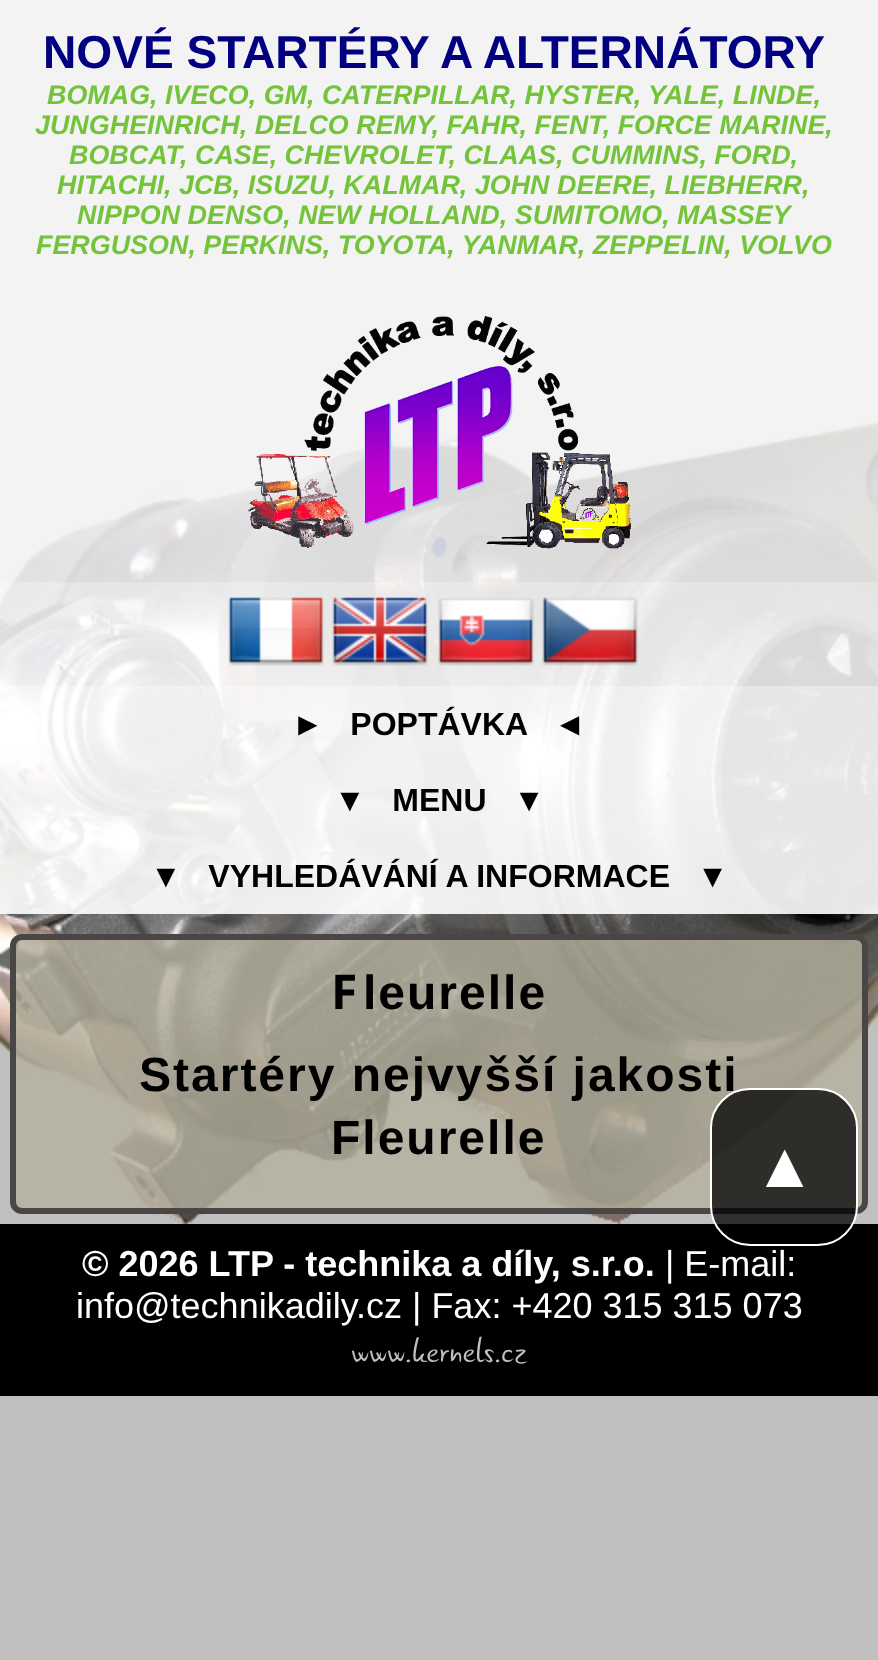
async function draw(canvas) {
  canvas.width = 878;
  canvas.height = 1660;
  const ctx = canvas.getContext('2d');
  ctx.miterLimit = 4;
  ctx.fontKerning = 'normal';
  function label(s, x, y, font, color) {
    ctx.font = font;
    ctx.fillStyle = color;
    ctx.fillText(s, x, y);
  }
  function rect(x, y, w, h, color) {
    ctx.fillStyle = color;
    ctx.fillRect(x, y, w, h);
  }
  async function image(src, x, y, w, h) {
    const img = new Image();
    img.src = src;
    await img.decode();
    ctx.drawImage(img, x, y, w, h);
  }

  rect(0, 0, 878, 1660, '#c0c0c0');
  await image('assets/img1.png', 0, 421, 878, 803);
  rect(0, 0, 878, 582, '#ffffffcc');
  label('NOVÉ STARTÉRY A ALTERNÁTORY', 43, 68, 'bold 46.1px Liberation Sans', '#000080');
  label('BOMAG, IVECO, GM, CATERPILLAR, HYSTER, YALE, LINDE,', 47, 104, 'italic bold 26.9px Liberation Sans', '#73c43b');
  label('JUNGHEINRICH, DELCO REMY, FAHR, FENT, FORCE MARINE,', 35, 134, 'italic bold 26.9px Liberation Sans', '#73c43b');
  label('BOBCAT, CASE, CHEVROLET, CLAAS, CUMMINS, FORD,', 69, 164, 'italic bold 26.9px Liberation Sans', '#73c43b');
  label('HITACHI, JCB, ISUZU, KALMAR, JOHN DEERE, LIEBHERR,', 57, 194, 'italic bold 26.9px Liberation Sans', '#73c43b');
  label('NIPPON DENSO, NEW HOLLAND, SUMITOMO, MASSEY', 77, 224, 'italic bold 26.9px Liberation Sans', '#73c43b');
  label('FERGUSON, PERKINS, TOYOTA, YANMAR, ZEPPELIN, VOLVO', 36, 254, 'italic bold 26.9px Liberation Sans', '#73c43b');
  await image('assets/img2.png', 248, 316, 383, 233);
  rect(0, 582, 878, 104, '#ffffffd9');
  await image('assets/img3.png', 228, 597, 96, 69);
  await image('assets/img4.png', 332, 597, 96, 69);
  await image('assets/img5.png', 438, 598, 96, 68);
  await image('assets/img6.png', 542, 597, 96, 69);
  rect(0, 686, 878, 76, '#ffffffe6');
  label('►   POPTÁVKA   ◄', 292, 735, 'bold 32px Liberation Sans', '#000');
  rect(0, 762, 878, 76, '#ffffffe6');
  label('▼   MENU   ▼', 334, 811, 'bold 32px Liberation Sans', '#000');
  rect(0, 838, 878, 76, '#ffffffe6');
  label('▼   VYHLEDÁVÁNÍ A INFORMACE   ▼', 150, 887, 'bold 32px Liberation Sans', '#000');
  ctx.fillStyle = '#b4b09dcc';
  ctx.beginPath();
  ctx.roundRect(13, 937, 852, 274, 9);
  ctx.fill();
  ctx.strokeStyle = '#4a4646';
  ctx.lineWidth = 6;
  ctx.stroke();
  ctx.letterSpacing = '2px';
  label('F', 331, 1009, 'bold 48px Noto Sans', '#000');
  label('leurelle', 363, 1009, 'bold 48px Liberation Sans', '#000');
  label('Startéry nejvyšší jakosti', 139, 1091, 'bold 48px Liberation Sans', '#000');
  label('Fleurelle', 331, 1154, 'bold 48px Liberation Sans', '#000');
  rect(0, 1224, 878, 172, '#000');
  ctx.fillStyle = '#000000bf';
  ctx.beginPath();
  ctx.roundRect(711, 1089, 146, 156, 39);
  ctx.fill();
  ctx.strokeStyle = '#fff';
  ctx.lineWidth = 2;
  ctx.stroke();
  ctx.letterSpacing = '0px';
  label('▲', 753, 1187, '64px Liberation Sans', '#fff');
  label('© 2026 LTP - technika a díly, s.r.o.', 82, 1276, 'bold 36px Liberation Sans', '#fff');
  label('| E-mail:', 665, 1276, '36px Liberation Sans', '#fff');
  label('info@technikadily.cz | Fax: +420 315 315 073', 76, 1318, '36px Liberation Sans', '#fff');
  label('www.kernels.cz', 351, 1362, '36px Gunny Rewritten', '#c0c0c0');
}

draw(document.querySelector('canvas'));
